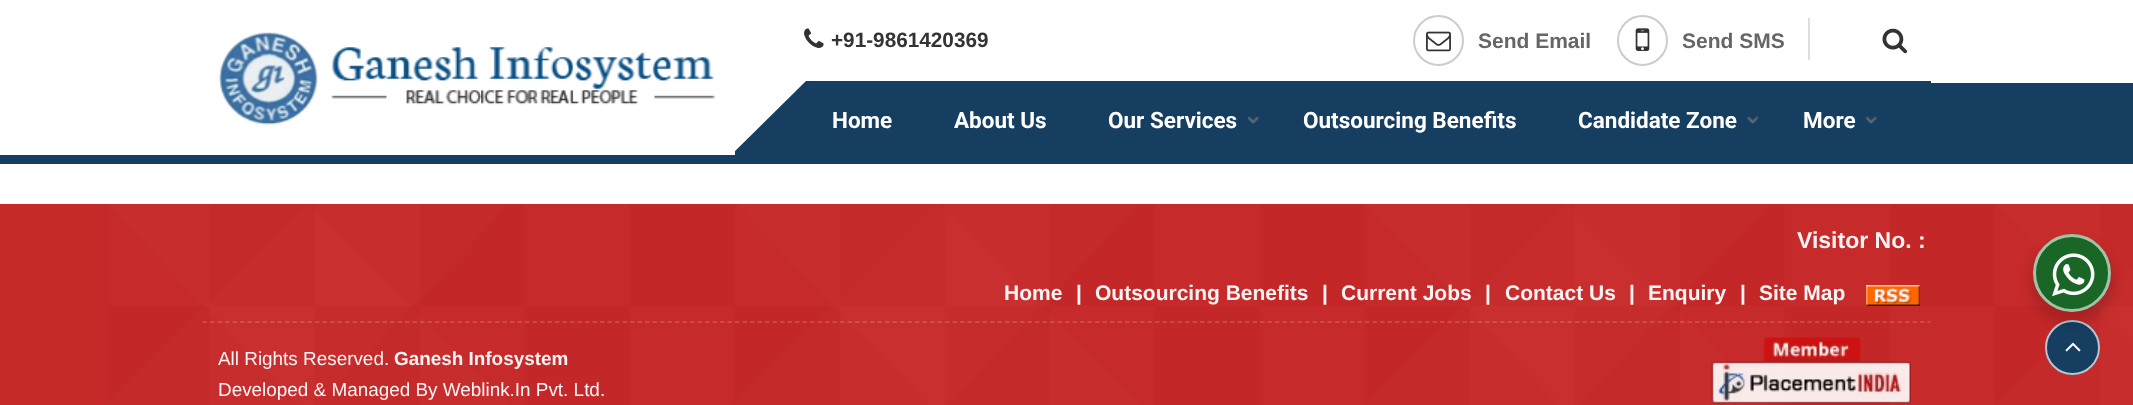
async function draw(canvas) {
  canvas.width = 2133;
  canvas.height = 405;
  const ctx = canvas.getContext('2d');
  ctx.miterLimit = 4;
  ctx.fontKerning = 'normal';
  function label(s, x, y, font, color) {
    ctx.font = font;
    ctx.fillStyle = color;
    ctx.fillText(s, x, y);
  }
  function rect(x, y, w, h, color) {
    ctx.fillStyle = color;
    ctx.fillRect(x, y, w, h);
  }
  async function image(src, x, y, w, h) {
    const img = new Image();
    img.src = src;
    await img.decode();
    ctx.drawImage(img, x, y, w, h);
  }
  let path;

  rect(0, 0, 2133, 405, '#fff');
  rect(735, 81, 1196, 83, '#163e61');
  ctx.fillStyle = '#fff';
  path = new Path2D('M726 160V81H806Z');
  ctx.fill(path);
  rect(0, 155, 735, 9, '#163e61');
  await image('assets/img1.png', 218, 32, 497, 94);
  await image('assets/img2.png', 804, 28, 20, 20);
  label('+91-9861420369', 831, 47, 'bold 20.75px Liberation Sans', '#333');
  ctx.beginPath();
  ctx.arc(1438.5, 40.5, 24.5, 0, 2 * Math.PI);
  ctx.strokeStyle = '#ccc';
  ctx.lineWidth = 2;
  ctx.stroke();
  await image('assets/img3.png', 1426, 31, 25, 21);
  label('Send Email', 1478, 48, 'bold 21px Liberation Sans', '#666');
  ctx.beginPath();
  ctx.arc(1642.5, 40.5, 24.5, 0, 2 * Math.PI);
  ctx.stroke();
  await image('assets/img4.png', 1635, 28, 15, 23);
  label('Send SMS', 1682, 48, 'bold 21px Liberation Sans', '#666');
  rect(1808, 18, 2, 42, '#dedede');
  await image('assets/img5.png', 1882, 28, 26, 26);
  label('Home', 832, 128, 'bold 22.5px Roboto', '#fff');
  label('About Us', 954, 128, 'bold 22.5px Roboto', '#fff');
  label('Our Services', 1108, 128, 'bold 22.5px Roboto', '#fff');
  await image('assets/img6.png', 1247, 116, 12, 8);
  label('Outsourcing Benefits', 1303, 128, 'bold 22.5px Roboto', '#fff');
  label('Candidate Zone', 1578, 128, 'bold 22.5px Roboto', '#fff');
  await image('assets/img7.png', 1747, 116, 12, 8);
  label('More', 1803, 128, 'bold 22.5px Roboto', '#fff');
  await image('assets/img6.png', 1865, 116, 12, 8);
  rect(1931, 83, 202, 81, '#163e61');
  rect(0, 204, 2133, 201, '#c72828');
  await image('assets/img8.png', 108, 204, 2025, 201);
  label('Visitor No. :', 1797, 248, 'bold 23px Liberation Sans', '#fcf4f4');
  label('Home', 1004, 300, 'bold 21px Liberation Sans', '#fcf4f4');
  label('|', 1076, 300, 'bold 21px Liberation Sans', '#fcf4f4');
  label('Outsourcing Benefits', 1095, 300, 'bold 21px Liberation Sans', '#fcf4f4');
  label('|', 1322, 300, 'bold 21px Liberation Sans', '#fcf4f4');
  label('Current Jobs', 1341, 300, 'bold 21px Liberation Sans', '#fcf4f4');
  label('|', 1485, 300, 'bold 21px Liberation Sans', '#fcf4f4');
  label('Contact Us', 1505, 300, 'bold 21px Liberation Sans', '#fcf4f4');
  label('|', 1629, 300, 'bold 21px Liberation Sans', '#fcf4f4');
  label('Enquiry', 1648, 300, 'bold 21px Liberation Sans', '#fcf4f4');
  label('|', 1740, 300, 'bold 21px Liberation Sans', '#fcf4f4');
  label('Site Map', 1759, 300, 'bold 21px Liberation Sans', '#fcf4f4');
  await image('assets/img9.png', 1866, 285, 54, 21);
  path = new Path2D('M202.5 322H1930.5');
  ctx.strokeStyle = '#ffffff33';
  ctx.lineWidth = 1.5;
  ctx.setLineDash([4.5, 3]);
  ctx.stroke(path);
  label('All Rights Reserved.', 218, 365, '18.9px Liberation Sans', '#fcf4f4');
  label('Ganesh Infosystem', 394, 365, 'bold 18.9px Liberation Sans', '#fcf4f4');
  label('Developed & Managed By Weblink.In Pvt. Ltd.', 218, 396, '18.9px Liberation Sans', '#fcf4f4');
  await image('assets/img10.png', 1711, 337, 200, 67);
  ctx.fillStyle = '#163e61';
  ctx.beginPath();
  ctx.arc(2072.5, 347.5, 27.5, 0, 2 * Math.PI);
  ctx.fill();
  ctx.beginPath();
  ctx.arc(2072.5, 347.5, 26.5, 0, 2 * Math.PI);
  ctx.strokeStyle = '#ffffffb3';
  ctx.lineWidth = 2;
  ctx.setLineDash([]);
  ctx.stroke();
  await image('assets/img12.png', 2065, 342, 16, 10);
  ctx.fillStyle = '#00000024';
  ctx.filter = 'blur(6px)';
  ctx.beginPath();
  ctx.roundRect(2030, 240, 84, 84, 42);
  ctx.fill();
  ctx.filter = 'none';
  ctx.fillStyle = '#196626';
  ctx.beginPath();
  ctx.arc(2072, 273, 39, 0, 2 * Math.PI);
  ctx.fill();
  ctx.beginPath();
  ctx.arc(2072, 273, 37.5, 0, 2 * Math.PI);
  ctx.strokeStyle = '#ffffff99';
  ctx.lineWidth = 3;
  ctx.stroke();
  await image('assets/img11.png', 2052, 253, 43, 44);
}

draw(document.querySelector('canvas'));
